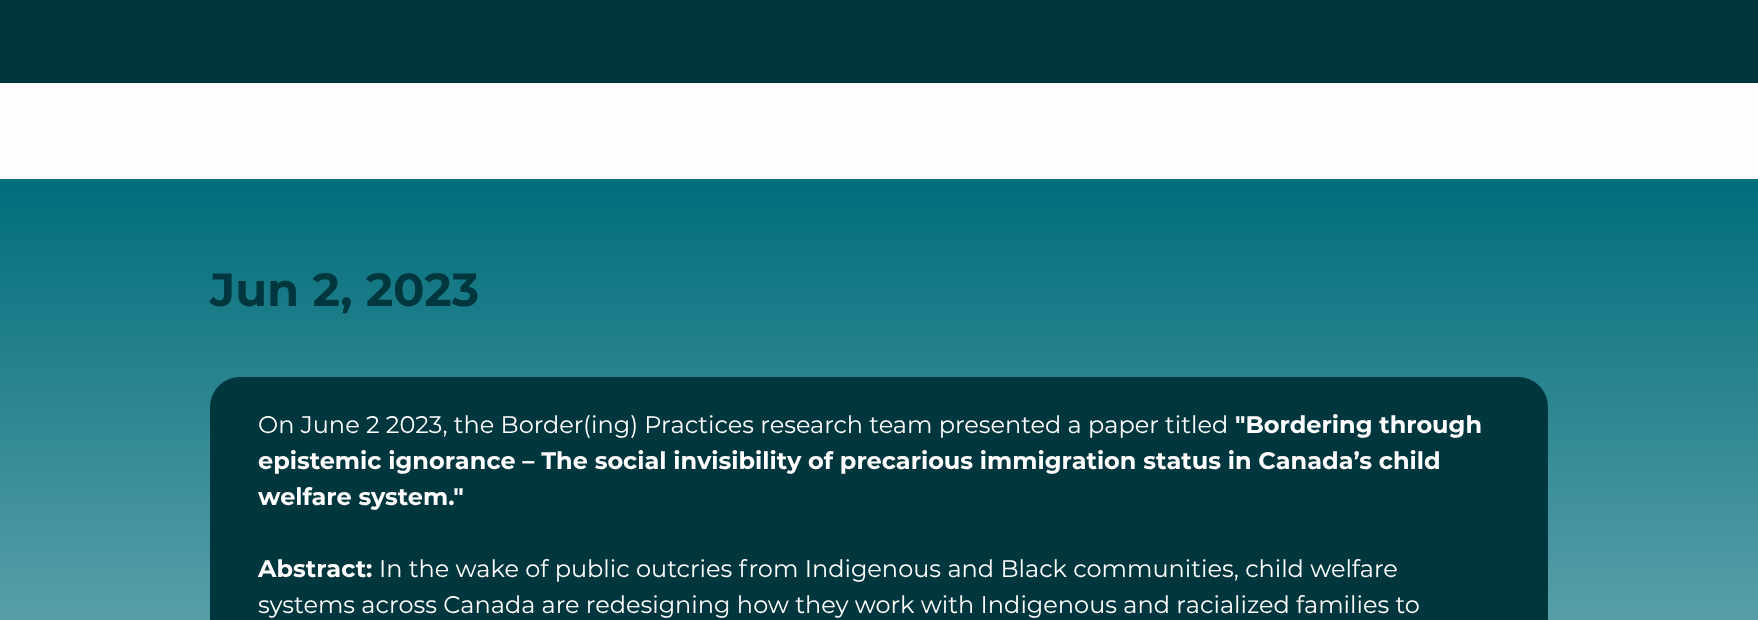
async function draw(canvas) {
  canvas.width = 1758;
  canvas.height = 620;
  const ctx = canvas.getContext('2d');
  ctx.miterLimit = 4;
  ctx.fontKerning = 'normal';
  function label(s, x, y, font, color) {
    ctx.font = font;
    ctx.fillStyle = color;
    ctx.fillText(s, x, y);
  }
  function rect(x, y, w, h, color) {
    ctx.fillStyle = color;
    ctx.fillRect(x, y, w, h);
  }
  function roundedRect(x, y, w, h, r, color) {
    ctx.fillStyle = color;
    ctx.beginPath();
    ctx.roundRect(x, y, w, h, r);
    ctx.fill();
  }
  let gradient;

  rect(0, 0, 1758, 620, '#fffdfd');
  rect(0, 0, 1758, 83, '#00363d');
  gradient = ctx.createLinearGradient(879, 178, 879, 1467);
  gradient.addColorStop(0, '#006d7b');
  gradient.addColorStop(1, '#fffdfd');
  ctx.fillStyle = gradient;
  ctx.fillRect(0, 179, 1758, 441);
  label('Jun 2, 2023', 210, 306, 'bold 46.5px Montserrat', '#00363d');
  roundedRect(210, 377, 1338, 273, 30, '#00363d');
  label('On June 2 2023, the Border(ing) Practices research team presented a paper titled', 258, 433, '24px Montserrat', '#fffdfd');
  label('"Bordering through', 1235, 433, 'bold 24px Montserrat', '#fffdfd');
  label('epistemic ignorance – The social invisibility of precarious immigration status in Canada’s child', 258, 469, 'bold 24px Montserrat', '#fffdfd');
  label('welfare system."', 258, 505, 'bold 24px Montserrat', '#fffdfd');
  label('Abstract:', 258, 577, 'bold 24px Montserrat', '#fffdfd');
  label('In the wake of public outcries from Indigenous and Black communities, child welfare', 379, 577, '24px Montserrat', '#fffdfd');
  label('systems across Canada are redesigning how they work with Indigenous and racialized families to', 258, 613, '24px Montserrat', '#fffdfd');
}

draw(document.querySelector('canvas'));
